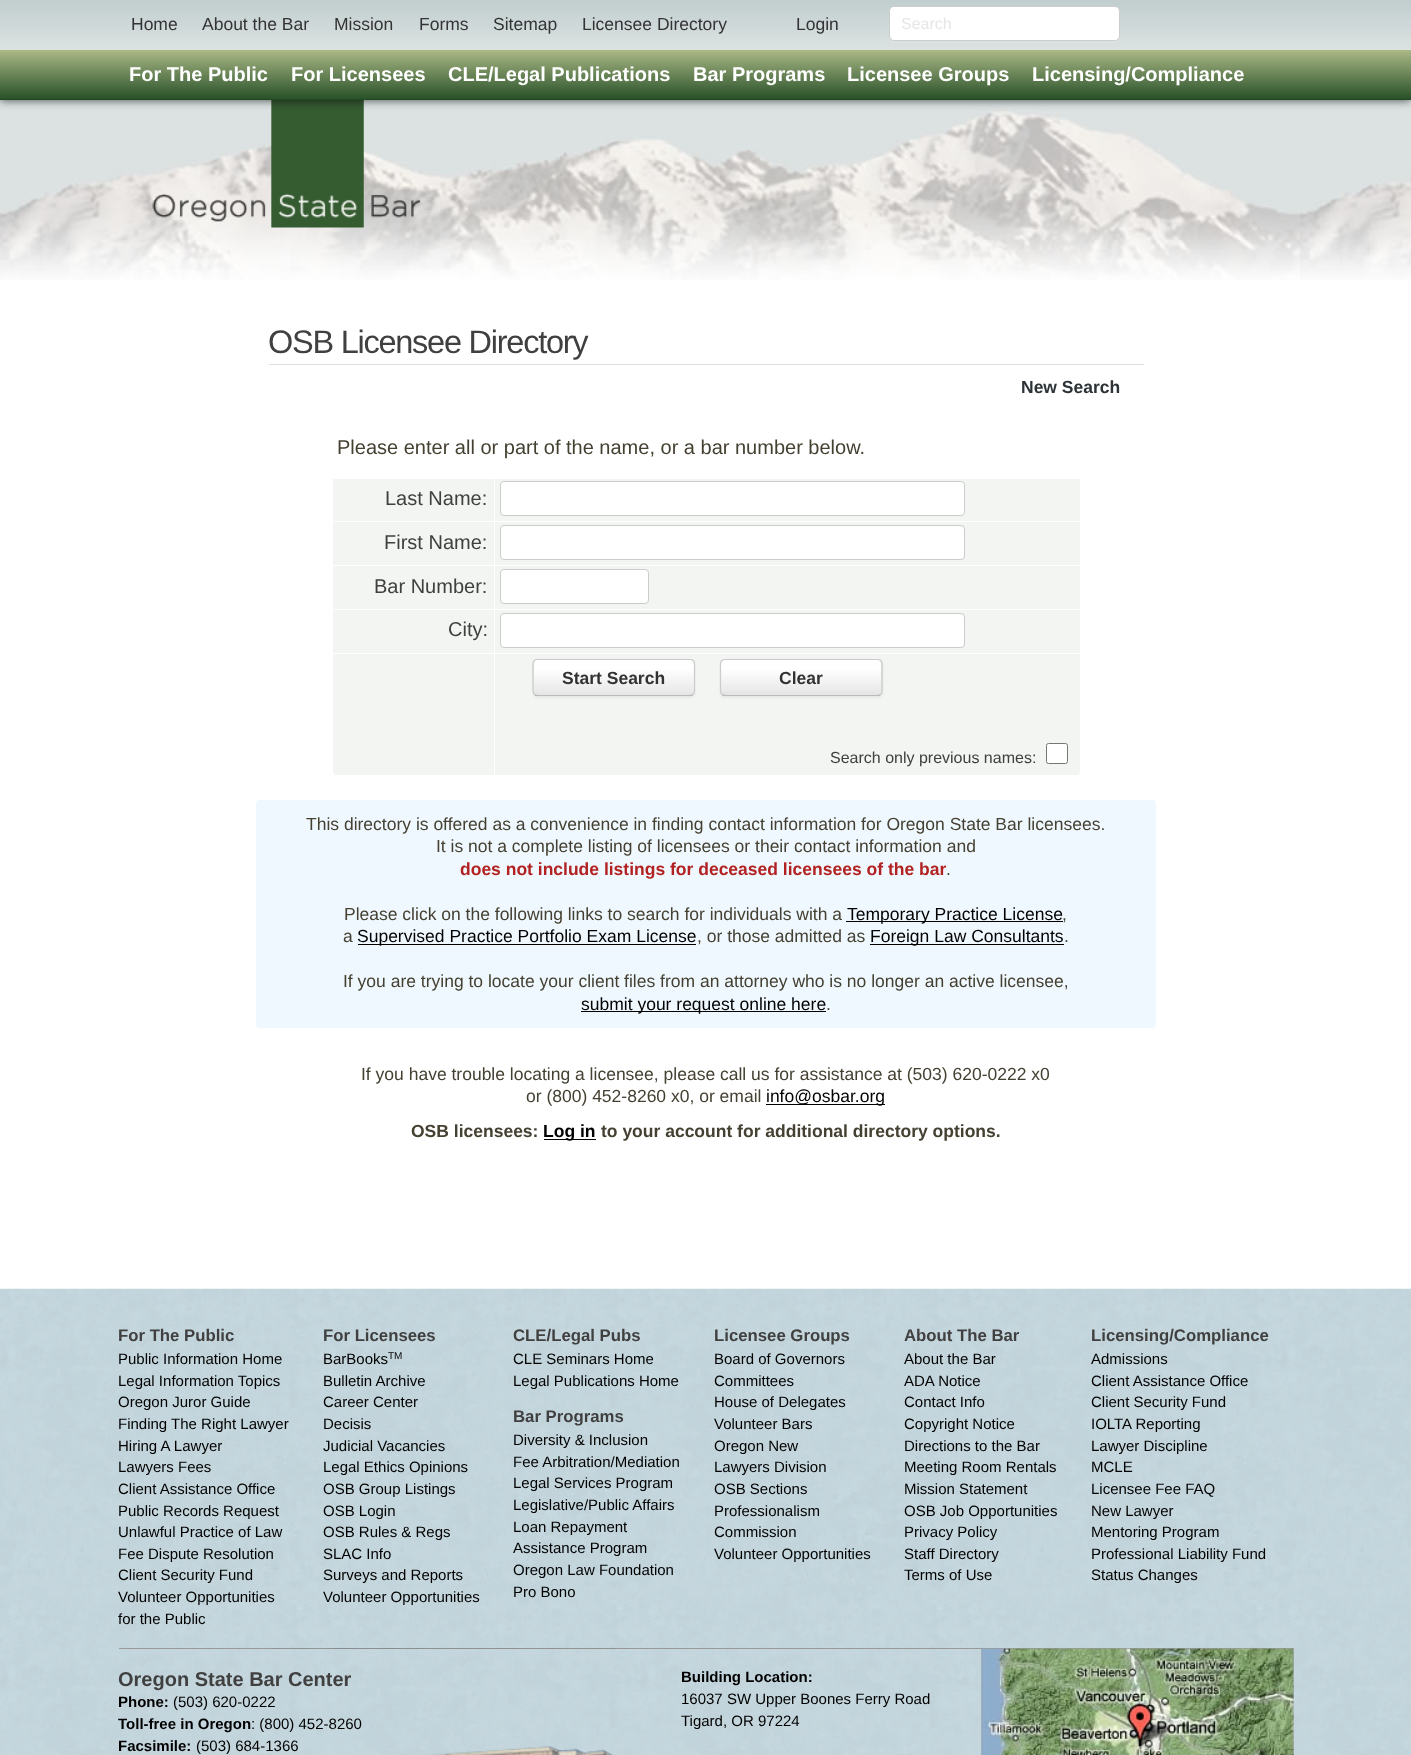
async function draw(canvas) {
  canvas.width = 1411;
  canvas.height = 1755;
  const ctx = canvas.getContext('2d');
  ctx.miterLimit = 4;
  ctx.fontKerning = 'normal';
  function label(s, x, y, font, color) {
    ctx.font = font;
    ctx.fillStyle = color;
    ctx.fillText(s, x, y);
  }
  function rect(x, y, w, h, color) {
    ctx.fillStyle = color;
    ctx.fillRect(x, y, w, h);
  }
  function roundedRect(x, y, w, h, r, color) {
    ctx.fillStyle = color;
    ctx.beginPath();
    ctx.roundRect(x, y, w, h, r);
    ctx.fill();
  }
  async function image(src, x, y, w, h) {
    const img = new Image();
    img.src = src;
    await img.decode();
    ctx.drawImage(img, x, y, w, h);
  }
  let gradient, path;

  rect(0, 0, 1411, 1755, '#fff');
  await image('assets/img1.png', 0, 100, 1411, 180);
  await image('assets/img2.png', 152, 100, 269, 128);
  ctx.fillStyle = '#00000099';
  ctx.filter = 'blur(4.5px)';
  ctx.beginPath();
  ctx.rect(0, 51, 1411, 50);
  ctx.fill();
  ctx.filter = 'none';
  gradient = ctx.createLinearGradient(706, 0, 706, 50);
  gradient.addColorStop(0, '#c1cece');
  gradient.addColorStop(1, '#dce2e2');
  ctx.fillStyle = gradient;
  ctx.fillRect(0, 0, 1411, 50);
  label('Home', 131, 30, '17.5px Liberation Sans', '#333');
  label('About the Bar', 202, 30, '17.5px Liberation Sans', '#333');
  label('Mission', 334, 30, '17.5px Liberation Sans', '#333');
  label('Forms', 419, 30, '17.5px Liberation Sans', '#333');
  label('Sitemap', 493, 30, '17.5px Liberation Sans', '#333');
  label('Licensee Directory', 582, 30, '17.5px Liberation Sans', '#333');
  label('Login', 796, 30, '17.5px Liberation Sans', '#333');
  ctx.fillStyle = '#dbe2e2';
  path = new Path2D('M889 38C889 41 891 43 894 43H1115C1119 43 1120 40 1120 36C1120 39 1118 41 1115 41H894C892 41 890 40 889 38Z');
  ctx.fill(path);
  ctx.fillStyle = '#fff';
  ctx.beginPath();
  ctx.roundRect(889.5, 6.5, 230, 34, 4.5);
  ctx.fill();
  ctx.strokeStyle = '#ccc';
  ctx.stroke();
  label('Search', 901, 29, '16px Liberation Sans', '#e6e6e6');
  gradient = ctx.createLinearGradient(0, 50, 0, 100);
  gradient.addColorStop(0, '#abb886');
  gradient.addColorStop(1, '#264f27');
  ctx.fillStyle = gradient;
  ctx.fillRect(0, 50, 1411, 49);
  rect(0, 99, 1411, 1, '#234824');
  label('For The Public', 129, 81, 'bold 20px Liberation Sans', '#fff');
  label('For Licensees', 291, 81, 'bold 20px Liberation Sans', '#fff');
  label('CLE/Legal Publications', 448, 81, 'bold 20px Liberation Sans', '#fff');
  label('Bar Programs', 693, 81, 'bold 20px Liberation Sans', '#fff');
  label('Licensee Groups', 847, 81, 'bold 20px Liberation Sans', '#fff');
  label('Licensing/Compliance', 1032, 81, 'bold 20px Liberation Sans', '#fff');
  ctx.letterSpacing = '-1.25px';
  label('OSB Licensee Directory', 268, 353, '32.5px Liberation Sans', '#404040');
  rect(269, 364, 875, 1, '#ddd');
  ctx.letterSpacing = '0px';
  label('New Search', 1021, 393, 'bold 17.5px Liberation Sans', '#2c3236');
  label('Please enter all or part of the name, or a bar number below.', 337, 454, '20px Liberation Sans', '#454132');
  rect(333, 479, 161, 86, '#f2f5f1');
  rect(333, 521, 161, 1, '#fff');
  label('Last Name:', 385, 505, '20px Liberation Sans', '#404040');
  rect(495, 479, 585, 86, '#f2f5f1');
  rect(494, 521, 586, 1, '#fff');
  ctx.beginPath();
  ctx.roundRect(500.5, 481.5, 464, 34, 3.5);
  ctx.fill();
  ctx.stroke();
  label('First Name:', 384, 549, '20px Liberation Sans', '#404040');
  ctx.fillStyle = '#fff';
  ctx.beginPath();
  ctx.roundRect(500.5, 525.5, 464, 34, 3.5);
  ctx.fill();
  ctx.stroke();
  rect(333, 566, 161, 43, '#f2f5f1');
  label('Bar Number:', 374, 593, '20px Liberation Sans', '#404040');
  rect(495, 566, 585, 43, '#f2f5f1');
  ctx.fillStyle = '#fff';
  ctx.beginPath();
  ctx.roundRect(500.5, 569.5, 148, 34, 3.5);
  ctx.fill();
  ctx.stroke();
  rect(333, 610, 161, 43, '#f2f5f1');
  label('City:', 448, 636, '20px Liberation Sans', '#404040');
  rect(495, 610, 585, 43, '#f2f5f1');
  ctx.fillStyle = '#fff';
  ctx.beginPath();
  ctx.roundRect(500.5, 613.5, 464, 34, 3.5);
  ctx.fill();
  ctx.stroke();
  rect(333, 654, 161, 81, '#f2f5f1');
  rect(495, 654, 585, 81, '#f2f5f1');
  ctx.fillStyle = '#0000000d';
  ctx.filter = 'blur(1px)';
  ctx.beginPath();
  ctx.roundRect(533, 660, 162, 38, 5);
  ctx.fill();
  ctx.filter = 'none';
  roundedRect(533, 659, 162, 37, 5, '#e6e6e6');
  ctx.save();
  ctx.beginPath();
  ctx.roundRect(533, 659, 162, 37, 5);
  ctx.clip();
  gradient = ctx.createLinearGradient(614, 660, 614, 695);
  gradient.addColorStop(0, '#fff');
  gradient.addColorStop(0.25, '#fff');
  gradient.addColorStop(1, '#e6e6e6');
  ctx.fillStyle = gradient;
  ctx.fillRect(534, 660, 160, 35);
  ctx.restore();
  path = new Path2D('M693 694.5C692.5 695 691 695.5 690 695.5H537.5C536.5 695.5 535 695 534.5 694.5');
  ctx.strokeStyle = '#bbb';
  ctx.lineWidth = 1.2;
  ctx.stroke(path);
  path = new Path2D('M534.5 694.5C533.5 693.5 533 692.5 533 691V664C533 662.5 533.5 661.5 534.5 660.5C535 660 536.5 659.5 537.5 659.5H690C691 659.5 692.5 660 693 660.5C694 661.5 694.5 662.5 694.5 664V691C694.5 692.5 694 693.5 693 694.5');
  ctx.strokeStyle = '#ccc';
  ctx.stroke(path);
  label('Start Search', 562, 684, 'bold 17.5px Liberation Sans', '#333');
  ctx.fillStyle = '#0000000d';
  ctx.filter = 'blur(1px)';
  ctx.beginPath();
  ctx.roundRect(720, 660, 163, 38, 5);
  ctx.fill();
  ctx.filter = 'none';
  roundedRect(720, 659, 163, 37, 5, '#e6e6e6');
  gradient = ctx.createLinearGradient(801, 660, 801, 695);
  gradient.addColorStop(0, '#fff');
  gradient.addColorStop(0.25, '#fff');
  gradient.addColorStop(1, '#e6e6e6');
  ctx.fillStyle = gradient;
  ctx.fillRect(721, 660, 160, 32);
  path = new Path2D('M880.5 694.5C880 695 878.5 695.5 877.5 695.5H725C724 695.5 722.5 695 722 694.5');
  ctx.strokeStyle = '#bbb';
  ctx.stroke(path);
  path = new Path2D('M722 694.5C721 693.5 720.5 692.5 720.5 691V664C720.5 662.5 721 661.5 722 660.5C722.5 660 724 659.5 725 659.5H877.5C878.5 659.5 880 660 880.5 660.5C881.5 661.5 882 662.5 882 664V691C882 692.5 881.5 693.5 880.5 694.5');
  ctx.strokeStyle = '#ccc';
  ctx.stroke(path);
  label('Clear', 779, 684, 'bold 17.5px Liberation Sans', '#333');
  ctx.fillStyle = '#f2f5f1';
  ctx.beginPath();
  ctx.roundRect(333, 735, 161, 41, [0, 0, 0, 5]);
  ctx.fill();
  rect(335, 775, 159, 1, '#fff');
  ctx.fillStyle = '#f2f5f1';
  ctx.beginPath();
  ctx.roundRect(494, 735, 586, 41, [0, 0, 5, 0]);
  ctx.fill();
  rect(494, 775, 584, 1, '#fff');
  rect(494, 735, 1, 41, '#fff');
  label('Search only previous names:', 830, 763, '16px Liberation Sans', '#404040');
  ctx.fillStyle = '#fff';
  ctx.beginPath();
  ctx.roundRect(1046.5, 743.5, 21, 20, 2);
  ctx.fill();
  ctx.strokeStyle = '#767676';
  ctx.lineWidth = 1;
  ctx.stroke();
  roundedRect(256, 800, 900, 228, 4, '#f0f8ff');
  label('This directory is offered as a convenience in finding contact information for Oregon State Bar licensees.', 306, 830, '17.5px Liberation Sans', '#454132');
  label('It is not a complete listing of licensees or their contact information and', 436, 852, '17.5px Liberation Sans', '#454132');
  label('does not include listings for deceased licensees of the bar', 460, 875, 'bold 17.5px Liberation Sans', '#b22222');
  label('.', 946, 875, '17.5px Liberation Sans', '#454132');
  label('Please click on the following links to search for individuals with a', 344, 920, '17.5px Liberation Sans', '#454132');
  rect(846, 921, 217, 1, '#000');
  label('Temporary Practice License', 847, 920, '17.5px Liberation Sans', '#000');
  label(',', 1062, 920, '17.5px Liberation Sans', '#454132');
  label('a', 343, 942, '17.5px Liberation Sans', '#454132');
  rect(358, 944, 338, 1, '#000');
  label('Supervised Practice Portfolio Exam License', 357, 942, '17.5px Liberation Sans', '#000');
  label(', or those admitted as', 697, 942, '17.5px Liberation Sans', '#454132');
  rect(870, 944, 194, 1, '#000');
  label('Foreign Law Consultants', 870, 942, '17.5px Liberation Sans', '#000');
  label('.', 1064, 942, '17.5px Liberation Sans', '#454132');
  label('If you are trying to locate your client files from an attorney who is no longer an active licensee,', 343, 987, '17.5px Liberation Sans', '#454132');
  rect(581, 1011, 245, 1, '#000');
  label('submit your request online here', 581, 1010, '17.5px Liberation Sans', '#000');
  label('.', 826, 1010, '17.5px Liberation Sans', '#454132');
  label('If you have trouble locating a licensee, please call us for assistance at (503) 620-0222 x0', 361, 1080, '17.5px Liberation Sans', '#454132');
  label('or (800) 452-8260 x0, or email', 526, 1102, '17.5px Liberation Sans', '#454132');
  rect(766, 1104, 119, 1, '#000');
  label('info@osbar.org', 766, 1102, '17.5px Liberation Sans', '#000');
  label('OSB licensees:', 411, 1137, 'bold 17.5px Liberation Sans', '#454132');
  rect(544, 1139, 52, 1, '#000');
  label('Log in', 543, 1137, 'bold 17.5px Liberation Sans', '#000');
  label('to your account for additional directory options.', 601, 1137, 'bold 17.5px Liberation Sans', '#454132');
  await image('assets/img3.png', 0, 1288, 1411, 467);
  label('For The Public', 118, 1341, 'bold 16.75px Liberation Sans', '#404040');
  label('Public Information Home', 118, 1364, '15px Liberation Sans', '#000');
  label('Legal Information Topics', 118, 1386, '15px Liberation Sans', '#000');
  label('Oregon Juror Guide', 118, 1407, '15px Liberation Sans', '#000');
  label('Finding The Right Lawyer', 118, 1429, '15px Liberation Sans', '#000');
  label('Hiring A Lawyer', 118, 1451, '15px Liberation Sans', '#000');
  label('Lawyers Fees', 118, 1472, '15px Liberation Sans', '#000');
  label('Client Assistance Office', 118, 1494, '15px Liberation Sans', '#000');
  label('Public Records Request', 118, 1516, '15px Liberation Sans', '#000');
  label('Unlawful Practice of Law', 118, 1537, '15px Liberation Sans', '#000');
  label('Fee Dispute Resolution', 118, 1559, '15px Liberation Sans', '#000');
  label('Client Security Fund', 118, 1580, '15px Liberation Sans', '#000');
  label('Volunteer Opportunities', 118, 1602, '15px Liberation Sans', '#000');
  label('for the Public', 118, 1624, '15px Liberation Sans', '#000');
  label('For Licensees', 323, 1341, 'bold 16.75px Liberation Sans', '#404040');
  label('BarBooks', 323, 1364, '15px Liberation Sans', '#000');
  label('TM', 388, 1359, '10px Liberation Sans', '#000');
  label('Bulletin Archive', 323, 1386, '15px Liberation Sans', '#000');
  label('Career Center', 323, 1407, '15px Liberation Sans', '#000');
  label('Decisis', 323, 1429, '15px Liberation Sans', '#000');
  label('Judicial Vacancies', 323, 1451, '15px Liberation Sans', '#000');
  label('Legal Ethics Opinions', 323, 1472, '15px Liberation Sans', '#000');
  label('OSB Group Listings', 323, 1494, '15px Liberation Sans', '#000');
  label('OSB Login', 323, 1516, '15px Liberation Sans', '#000');
  label('OSB Rules & Regs', 323, 1537, '15px Liberation Sans', '#000');
  label('SLAC Info', 323, 1559, '15px Liberation Sans', '#000');
  label('Surveys and Reports', 323, 1580, '15px Liberation Sans', '#000');
  label('Volunteer Opportunities', 323, 1602, '15px Liberation Sans', '#000');
  label('CLE/Legal Pubs', 513, 1341, 'bold 16.75px Liberation Sans', '#404040');
  label('CLE Seminars Home', 513, 1364, '15px Liberation Sans', '#000');
  label('Legal Publications Home', 513, 1386, '15px Liberation Sans', '#000');
  label('Bar Programs', 513, 1422, 'bold 16.75px Liberation Sans', '#404040');
  label('Diversity & Inclusion', 513, 1445, '15px Liberation Sans', '#000');
  label('Fee Arbitration/Mediation', 513, 1467, '15px Liberation Sans', '#000');
  label('Legal Services Program', 513, 1488, '15px Liberation Sans', '#000');
  label('Legislative/Public Affairs', 513, 1510, '15px Liberation Sans', '#000');
  label('Loan Repayment', 513, 1532, '15px Liberation Sans', '#000');
  label('Assistance Program', 513, 1553, '15px Liberation Sans', '#000');
  label('Oregon Law Foundation', 513, 1575, '15px Liberation Sans', '#000');
  label('Pro Bono', 513, 1597, '15px Liberation Sans', '#000');
  label('Licensee Groups', 714, 1341, 'bold 16.75px Liberation Sans', '#404040');
  label('Board of Governors', 714, 1364, '15px Liberation Sans', '#000');
  label('Committees', 714, 1386, '15px Liberation Sans', '#000');
  label('House of Delegates', 714, 1407, '15px Liberation Sans', '#000');
  label('Volunteer Bars', 714, 1429, '15px Liberation Sans', '#000');
  label('Oregon New', 714, 1451, '15px Liberation Sans', '#000');
  label('Lawyers Division', 714, 1472, '15px Liberation Sans', '#000');
  label('OSB Sections', 714, 1494, '15px Liberation Sans', '#000');
  label('Professionalism', 714, 1516, '15px Liberation Sans', '#000');
  label('Commission', 714, 1537, '15px Liberation Sans', '#000');
  label('Volunteer Opportunities', 714, 1559, '15px Liberation Sans', '#000');
  label('About The Bar', 904, 1341, 'bold 16.75px Liberation Sans', '#404040');
  label('About the Bar', 904, 1364, '15px Liberation Sans', '#000');
  label('ADA Notice', 904, 1386, '15px Liberation Sans', '#000');
  label('Contact Info', 904, 1407, '15px Liberation Sans', '#000');
  label('Copyright Notice', 904, 1429, '15px Liberation Sans', '#000');
  label('Directions to the Bar', 904, 1451, '15px Liberation Sans', '#000');
  label('Meeting Room Rentals', 904, 1472, '15px Liberation Sans', '#000');
  label('Mission Statement', 904, 1494, '15px Liberation Sans', '#000');
  label('OSB Job Opportunities', 904, 1516, '15px Liberation Sans', '#000');
  label('Privacy Policy', 904, 1537, '15px Liberation Sans', '#000');
  label('Staff Directory', 904, 1559, '15px Liberation Sans', '#000');
  label('Terms of Use', 904, 1580, '15px Liberation Sans', '#000');
  label('Licensing/Compliance', 1091, 1341, 'bold 16.75px Liberation Sans', '#404040');
  label('Admissions', 1091, 1364, '15px Liberation Sans', '#000');
  label('Client Assistance Office', 1091, 1386, '15px Liberation Sans', '#000');
  label('Client Security Fund', 1091, 1407, '15px Liberation Sans', '#000');
  label('IOLTA Reporting', 1091, 1429, '15px Liberation Sans', '#000');
  label('Lawyer Discipline', 1091, 1451, '15px Liberation Sans', '#000');
  label('MCLE', 1091, 1472, '15px Liberation Sans', '#000');
  label('Licensee Fee FAQ', 1091, 1494, '15px Liberation Sans', '#000');
  label('New Lawyer', 1091, 1516, '15px Liberation Sans', '#000');
  label('Mentoring Program', 1091, 1537, '15px Liberation Sans', '#000');
  label('Professional Liability Fund', 1091, 1559, '15px Liberation Sans', '#000');
  label('Status Changes', 1091, 1580, '15px Liberation Sans', '#000');
  rect(119, 1648, 1175, 1, '#999');
  await image('assets/img4.png', 271, 1648, 358, 107);
  label('Oregon State Bar Center', 118, 1686, 'bold 20px Liberation Sans', '#404040');
  label('Phone:', 118, 1707, 'bold 15px Liberation Sans', '#000');
  label('(503) 620-0222', 173, 1707, '15px Liberation Sans', '#000');
  label('Toll-free in Oregon', 118, 1729, 'bold 15px Liberation Sans', '#000');
  label(': (800) 452-8260', 251, 1729, '15px Liberation Sans', '#000');
  label('Facsimile:', 118, 1751, 'bold 15px Liberation Sans', '#000');
  label('(503) 684-1366', 196, 1751, '15px Liberation Sans', '#000');
  label('Building Location:', 681, 1682, 'bold 15px Liberation Sans', '#000');
  label('16037 SW Upper Boones Ferry Road', 681, 1704, '15px Liberation Sans', '#000');
  label('Tigard, OR 97224', 681, 1726, '15px Liberation Sans', '#000');
  await image('assets/img5.png', 981, 1648, 313, 107);
}

draw(document.querySelector('canvas'));
